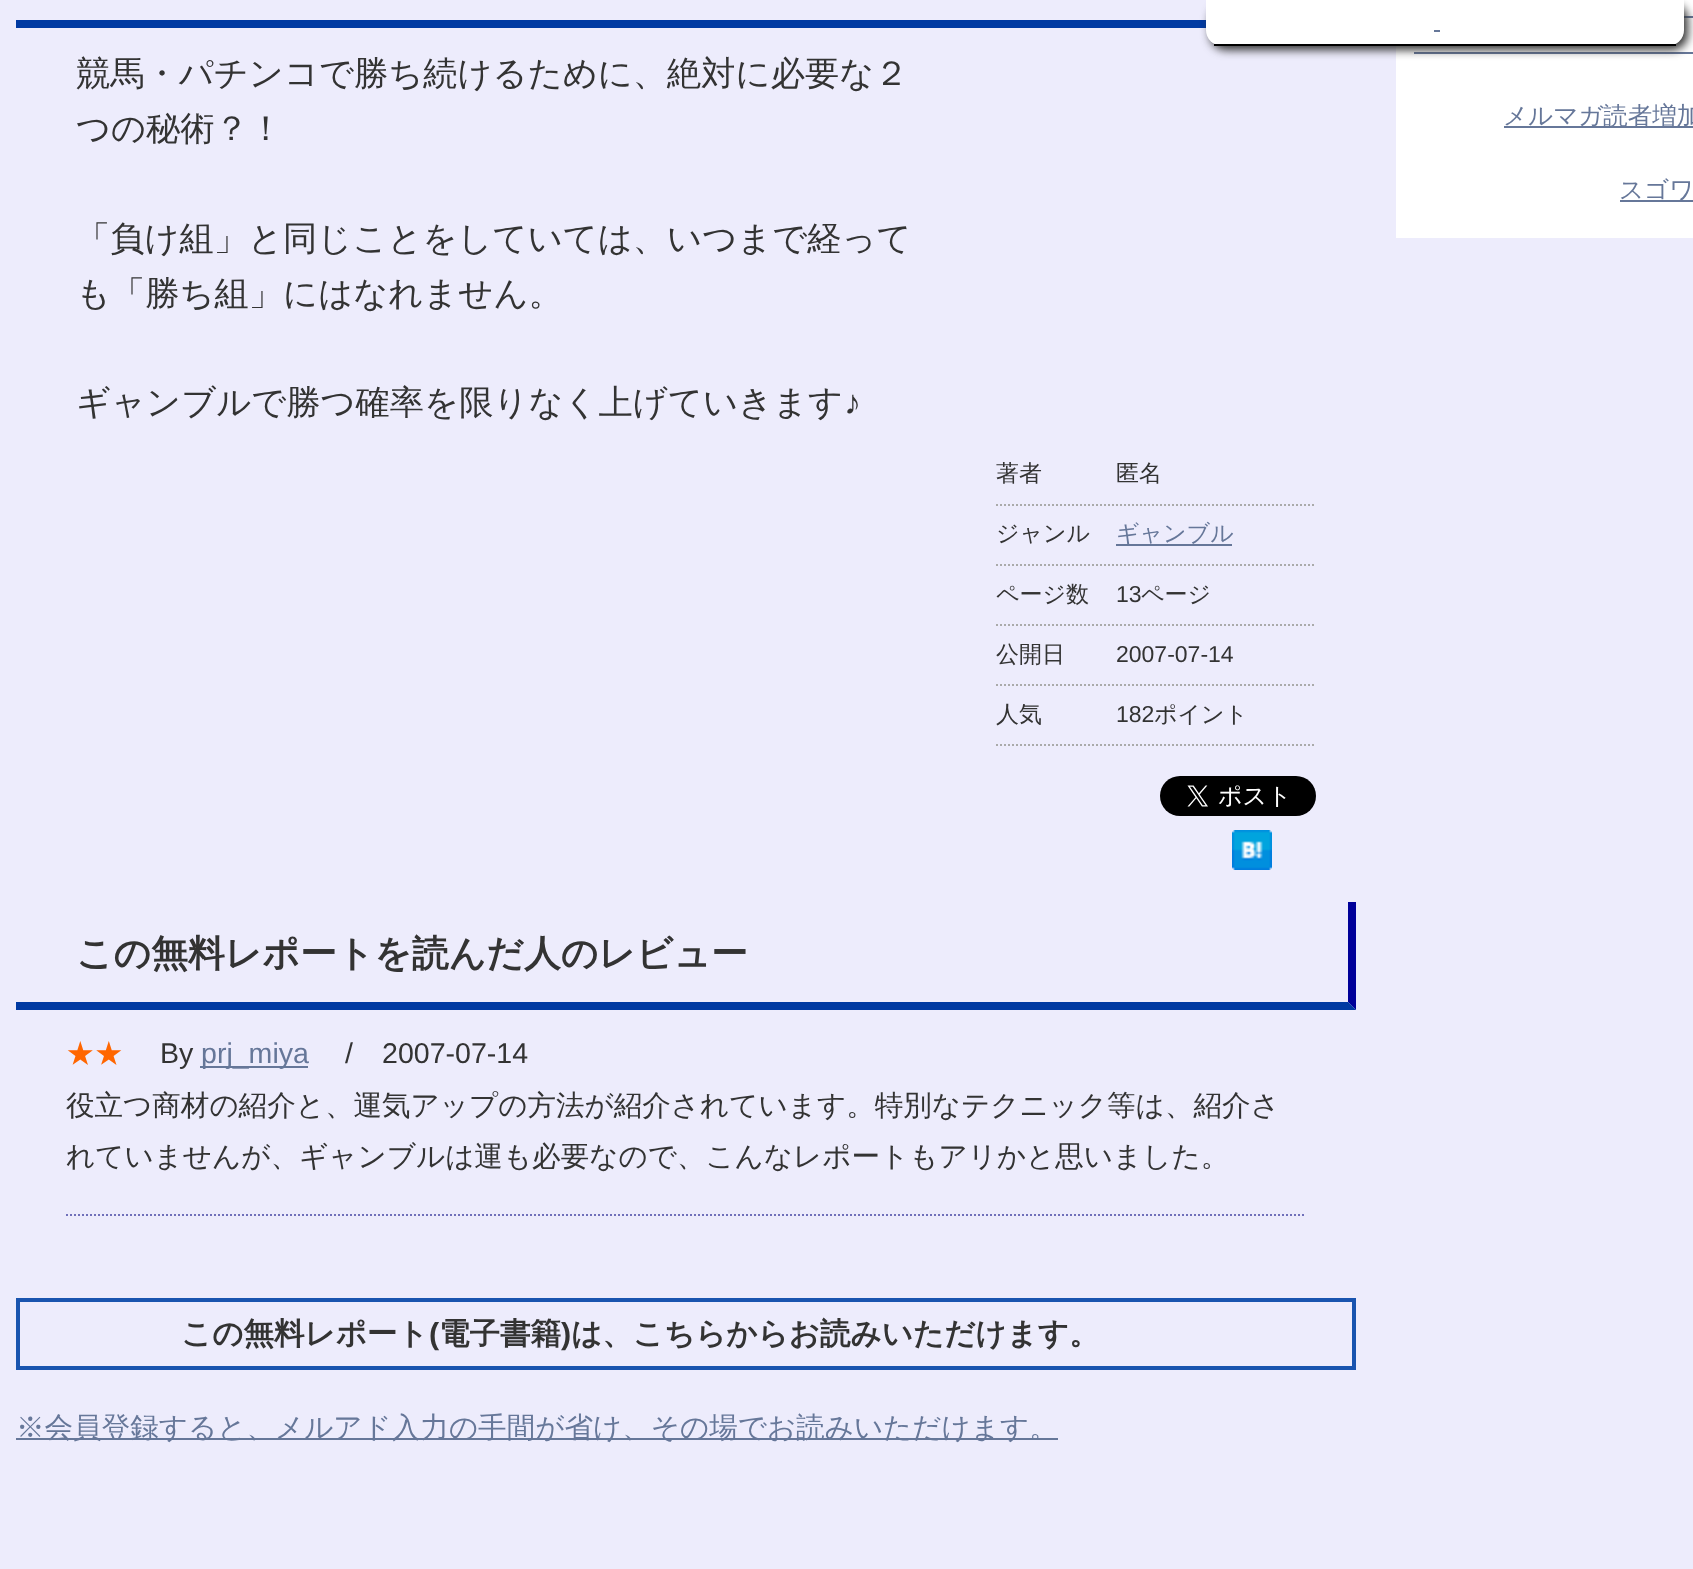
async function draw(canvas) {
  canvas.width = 1693;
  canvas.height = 1569;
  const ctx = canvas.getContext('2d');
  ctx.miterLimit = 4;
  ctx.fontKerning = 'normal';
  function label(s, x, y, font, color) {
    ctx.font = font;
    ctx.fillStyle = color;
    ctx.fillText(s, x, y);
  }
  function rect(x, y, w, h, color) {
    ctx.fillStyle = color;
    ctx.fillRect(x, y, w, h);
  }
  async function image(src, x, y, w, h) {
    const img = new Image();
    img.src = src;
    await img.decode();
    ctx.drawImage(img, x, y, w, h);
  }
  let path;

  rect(0, 0, 1693, 1569, '#edecfc');
  ctx.fillStyle = '#003aa2';
  path = new Path2D('M1356 28H16V20H1348Z');
  ctx.fill(path);
  rect(1396, 0, 297, 238, '#fff');
  rect(1684, 16, 9, 2, '#679');
  rect(1414, 52, 279, 2, '#679');
  ctx.fillStyle = '#333';
  ctx.filter = 'blur(5px)';
  ctx.beginPath();
  ctx.roundRect(1210, 4, 478, 46, 16);
  ctx.fill();
  ctx.filter = 'none';
  ctx.fillStyle = '#fff';
  ctx.beginPath();
  ctx.roundRect(1206, 0, 478, 46, [0, 0, 16, 16]);
  ctx.fill();
  rect(1214, 44, 462, 2, '#000');
  rect(1434, 30, 6, 2, '#679');
  label('競馬・パチンコで勝ち続けるために、絶対に必要な２', 76, 85, '500 34.25px WenQuanYi Zen Hei', '#333');
  label('つの秘術？！', 76, 140, '500 34.25px WenQuanYi Zen Hei', '#333');
  label('「負け組」と同じことをしていては、いつまで経って', 76, 250, '500 34.25px WenQuanYi Zen Hei', '#333');
  label('も「勝ち組」にはなれません。', 76, 305, '500 34.25px WenQuanYi Zen Hei', '#333');
  label('ギャンブルで勝つ確率を限りなく上げていきます', 76, 414, '500 34.25px WenQuanYi Zen Hei', '#333');
  label('♪', 844, 414, '34.25px Liberation Sans', '#333');
  label('著者', 996, 481, '500 23px WenQuanYi Zen Hei', '#333');
  path = new Path2D('M996 505H1316');
  ctx.strokeStyle = '#aaa';
  ctx.lineWidth = 2;
  ctx.setLineDash([2, 2]);
  ctx.stroke(path);
  label('匿名', 1116, 481, '500 23px WenQuanYi Zen Hei', '#333');
  label('ジャンル', 996, 541, '500 23px WenQuanYi Zen Hei', '#333');
  path = new Path2D('M996 565H1316');
  ctx.stroke(path);
  rect(1116, 544, 116, 2, '#679');
  label('ギャンブル', 1116, 541, '500 23px WenQuanYi Zen Hei', '#679');
  label('ページ数', 996, 602, '500 23px WenQuanYi Zen Hei', '#333');
  path = new Path2D('M996 625H1316');
  ctx.stroke(path);
  label('13', 1116, 602, '23px Liberation Sans', '#333');
  label('ページ', 1141, 602, '500 23px WenQuanYi Zen Hei', '#333');
  label('公開日', 996, 662, '500 23px WenQuanYi Zen Hei', '#333');
  path = new Path2D('M996 685H1316');
  ctx.stroke(path);
  label('2007-07-14', 1116, 662, '23px Liberation Sans', '#333');
  label('人気', 996, 722, '500 23px WenQuanYi Zen Hei', '#333');
  path = new Path2D('M996 745H1316');
  ctx.stroke(path);
  label('182', 1116, 722, '23px Liberation Sans', '#333');
  label('ポイント', 1154, 722, '500 23px WenQuanYi Zen Hei', '#333');
  await image('assets/img1.png', 1160, 776, 156, 40);
  await image('assets/img2.png', 1232, 830, 40, 40);
  ctx.fillStyle = '#009';
  path = new Path2D('M1356 902V1010L1348 1002V902Z');
  ctx.fill(path);
  ctx.fillStyle = '#003aa2';
  path = new Path2D('M1356 1010H16V1002H1348Z');
  ctx.fill(path);
  label('この無料レポートを読んだ人のレビュー', 76, 966, 'bold 36.75px WenQuanYi Zen Hei', '#333');
  path = new Path2D('M66 1215H1306');
  ctx.strokeStyle = '#7070ba';
  ctx.stroke(path);
  label('★★', 66, 1063, '500 28.55px WenQuanYi Zen Hei', '#f60');
  label('By', 160, 1063, '28.55px Liberation Sans', '#333');
  rect(200, 1066, 108, 2, '#679');
  label('prj_miya', 201, 1063, '28.55px Liberation Sans', '#679');
  label('/', 345, 1063, '28.55px Liberation Sans', '#333');
  label('2007-07-14', 382, 1063, '28.55px Liberation Sans', '#333');
  label('役立つ商材の紹介と、運気アップの方法が紹介されています。特別なテクニック等は、紹介さ', 66, 1115, '500 28.55px WenQuanYi Zen Hei', '#333');
  label('れていませんが、ギャンブルは運も必要なので、こんなレポートもアリかと思いました。', 66, 1166, '500 28.55px WenQuanYi Zen Hei', '#333');
  ctx.strokeStyle = '#1954af';
  ctx.lineWidth = 4;
  ctx.setLineDash([]);
  ctx.strokeRect(18, 1300, 1336, 68);
  label('この無料レポート', 181, 1344, 'bold 30.5px WenQuanYi Zen Hei', '#333');
  label('(', 429, 1344, 'bold 30.5px Liberation Sans', '#333');
  label('電子書籍', 439, 1344, 'bold 30.5px WenQuanYi Zen Hei', '#333');
  label(')', 561, 1344, 'bold 30.5px Liberation Sans', '#333');
  label('は、こちらからお読みいただけます。', 571, 1344, 'bold 30.5px WenQuanYi Zen Hei', '#333');
  rect(16, 1438, 1042, 2, '#679');
  label('※会員登録すると、メルアド入力の手間が省け、その場でお読みいただけます。', 16, 1437, '500 28.55px WenQuanYi Zen Hei', '#679');
  rect(1504, 126, 189, 2, '#679');
  label('メルマガ読者増加', 1503, 124, '500 24.5px WenQuanYi Zen Hei', '#679');
  rect(1620, 200, 73, 2, '#679');
  label('スゴワ', 1619, 198, '500 24.5px WenQuanYi Zen Hei', '#679');
}

draw(document.querySelector('canvas'));
